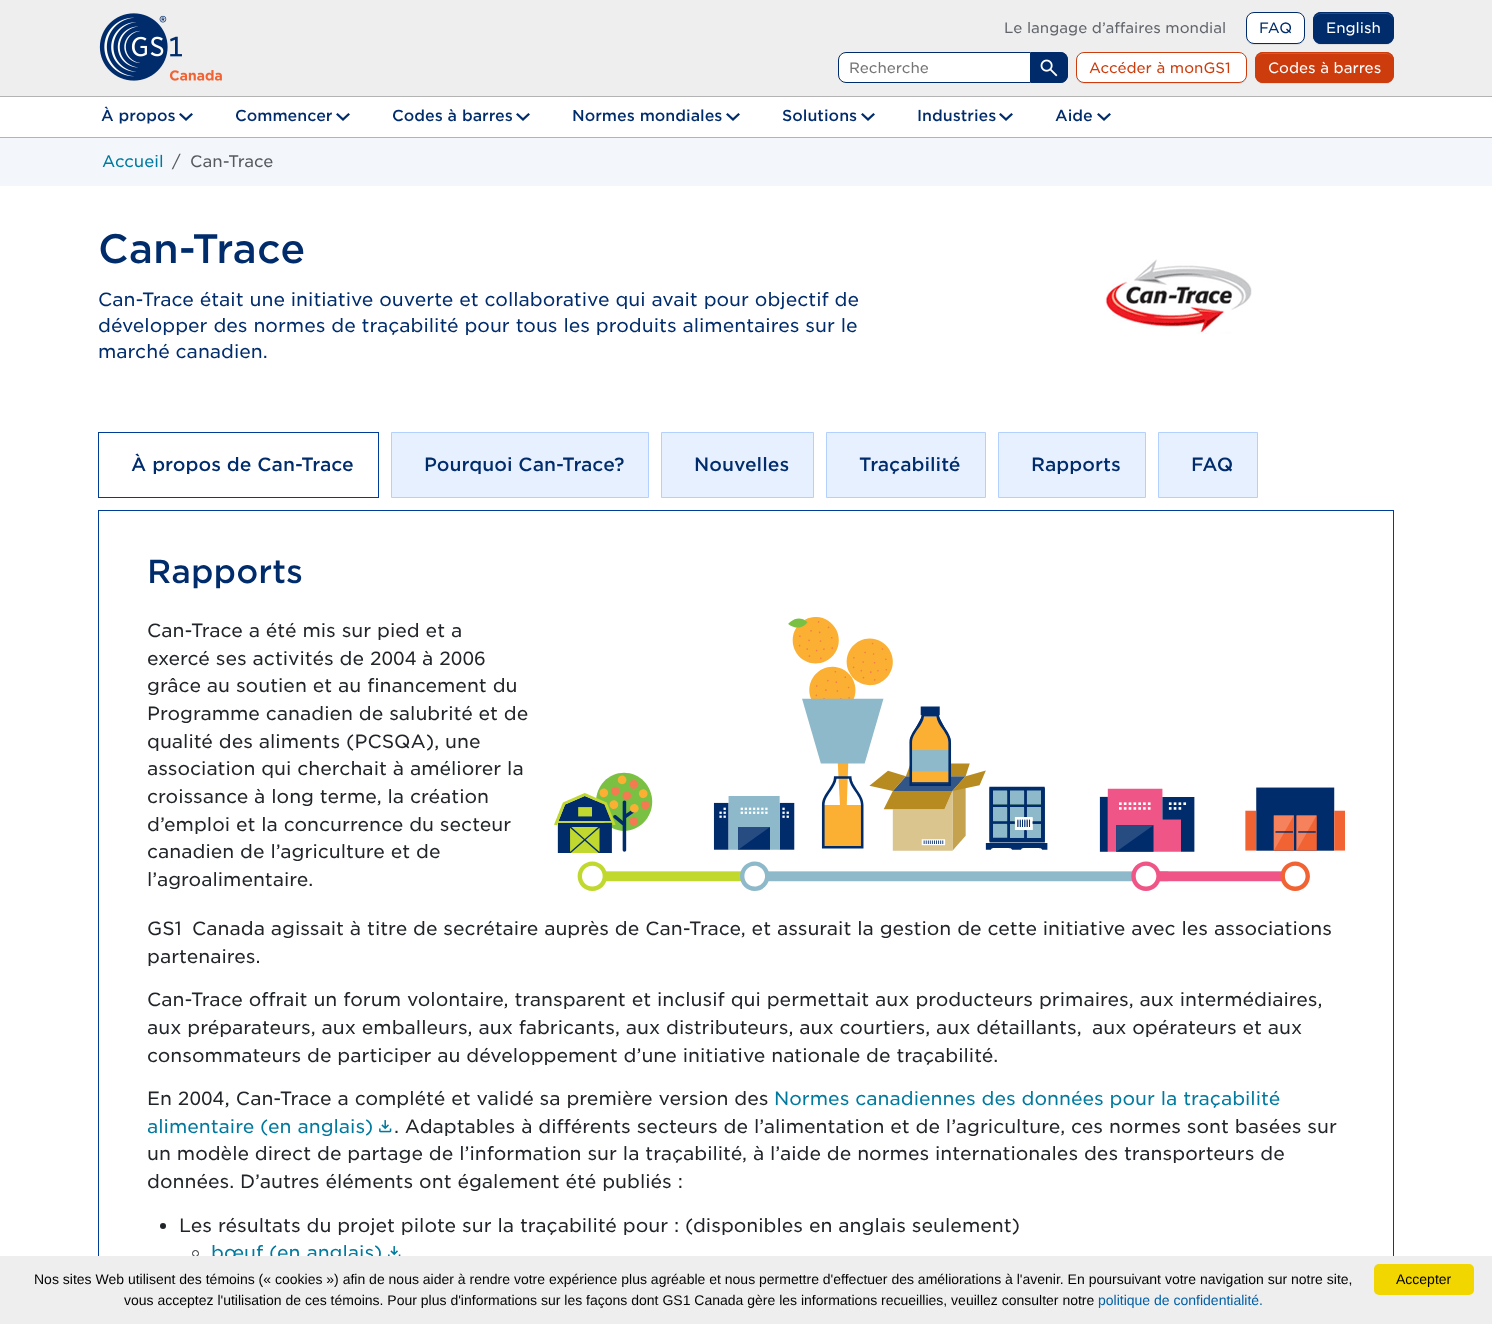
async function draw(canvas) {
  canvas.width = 1492;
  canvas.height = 1324;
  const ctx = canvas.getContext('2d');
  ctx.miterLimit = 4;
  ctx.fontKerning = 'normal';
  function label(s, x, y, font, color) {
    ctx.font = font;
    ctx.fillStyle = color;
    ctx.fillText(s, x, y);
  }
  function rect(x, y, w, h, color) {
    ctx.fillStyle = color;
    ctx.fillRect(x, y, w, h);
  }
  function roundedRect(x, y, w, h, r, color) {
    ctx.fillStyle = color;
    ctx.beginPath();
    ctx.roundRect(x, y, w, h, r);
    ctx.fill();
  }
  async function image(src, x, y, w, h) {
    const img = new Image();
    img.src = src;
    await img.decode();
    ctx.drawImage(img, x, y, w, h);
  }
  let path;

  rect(0, 0, 1492, 1324, '#fff');
  rect(0, 0, 1492, 96, '#eee');
  await image('assets/img1.png', 99, 13, 123, 68);
  label('Le langage d’affaires mondial', 1004, 33, '14.4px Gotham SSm', '#61656b');
  ctx.fillStyle = '#00000012';
  ctx.filter = 'blur(0.5px)';
  ctx.beginPath();
  ctx.roundRect(1246, 13, 59, 32, 8);
  ctx.fill();
  ctx.filter = 'none';
  ctx.fillStyle = '#fff';
  ctx.beginPath();
  ctx.roundRect(1246.5, 12.5, 58, 31, 7.5);
  ctx.fill();
  ctx.strokeStyle = '#002c6c';
  ctx.stroke();
  label('FAQ', 1259, 33, '14.4px Gotham SSm', '#002c6c');
  ctx.fillStyle = '#00000012';
  ctx.filter = 'blur(0.5px)';
  ctx.beginPath();
  ctx.roundRect(1313, 13, 81, 32, 8);
  ctx.fill();
  ctx.filter = 'none';
  roundedRect(1313, 12, 81, 32, 8, '#002c6c');
  ctx.fillStyle = '#264c82';
  path = new Path2D('M1321 14H1386C1390 14 1393 17 1393 21C1393 11 1383 13 1375 13H1332C1324 13 1314 11 1314 21C1314 17 1317 14 1321 14Z');
  ctx.fill(path);
  ctx.beginPath();
  ctx.roundRect(1313.5, 12.5, 80, 31, 7.5);
  ctx.stroke();
  label('English', 1326, 33, '14.4px Gotham SSm', '#fff');
  ctx.beginPath();
  ctx.roundRect(838.5, 52.5, 192, 30, [7.5, 0, 0, 7.5]);
  ctx.fill();
  ctx.strokeStyle = '#002b6b';
  ctx.stroke();
  label('Recherche', 849, 73, '14.4px Gotham SSm', '#757575');
  ctx.fillStyle = '#002b6b';
  ctx.beginPath();
  ctx.roundRect(1031, 52, 37, 31, [0, 8, 8, 0]);
  ctx.fill();
  path = new Path2D('M1031 52H1060C1064.5 52 1068 55.5 1068 60V75C1068 79.5 1064.5 83 1060 83H1031ZM1031 53H1060C1064 53 1067 56 1067 60V75C1067 79 1064 82 1060 82H1031Z');
  ctx.fill(path, 'evenodd');
  await image('assets/img2.png', 1040, 59, 18, 18);
  ctx.fillStyle = '#00000012';
  ctx.filter = 'blur(0.5px)';
  ctx.beginPath();
  ctx.roundRect(1076, 53, 171, 31, 8);
  ctx.fill();
  ctx.filter = 'none';
  ctx.fillStyle = '#fff';
  ctx.beginPath();
  ctx.roundRect(1076.5, 52.5, 170, 30, 7.5);
  ctx.fill();
  ctx.strokeStyle = '#cd3c0d';
  ctx.stroke();
  label('Accéder à monGS1', 1089, 73, '14.4px Gotham SSm', '#cd3c0d');
  ctx.fillStyle = '#00000012';
  ctx.filter = 'blur(0.5px)';
  ctx.beginPath();
  ctx.roundRect(1255, 53, 139, 31, 8);
  ctx.fill();
  ctx.filter = 'none';
  roundedRect(1255, 52, 139, 31, 8, '#cd3c0d');
  ctx.fillStyle = '#d55931';
  path = new Path2D('M1263 54H1386C1390 54 1393 57 1393 61C1393 48 1372 53 1366 53H1284C1277 53 1256 48 1256 61C1256 57 1259 54 1263 54Z');
  ctx.fill(path);
  ctx.beginPath();
  ctx.roundRect(1255.5, 52.5, 138, 30, 7.5);
  ctx.stroke();
  label('Codes à barres', 1268, 73, '14.4px Gotham SSm', '#fff');
  rect(0, 96, 1492, 1, '#b3b3b3');
  rect(0, 137, 1492, 1, '#b3b3b3');
  label('À propos', 101, 121, '500 15.25px Gotham SSm', '#002c6c');
  await image('assets/img3.png', 179, 113, 14, 8);
  label('Commencer', 235, 121, '500 15.25px Gotham SSm', '#002c6c');
  await image('assets/img3.png', 336, 113, 14, 8);
  label('Codes à barres', 392, 121, '500 15.25px Gotham SSm', '#002c6c');
  await image('assets/img3.png', 516, 113, 14, 8);
  label('Normes mondiales', 572, 121, '500 15.25px Gotham SSm', '#002c6c');
  await image('assets/img3.png', 726, 113, 14, 8);
  label('Solutions', 782, 121, '500 15.25px Gotham SSm', '#002c6c');
  await image('assets/img3.png', 861, 113, 14, 8);
  label('Industries', 917, 121, '500 15.25px Gotham SSm', '#002c6c');
  await image('assets/img3.png', 999, 113, 14, 8);
  label('Aide', 1055, 121, '500 15.25px Gotham SSm', '#002c6c');
  await image('assets/img3.png', 1097, 113, 14, 8);
  rect(0, 138, 1492, 48, '#f3f7fb');
  label('Accueil', 102, 167, '16px Gotham SSm', '#00799e');
  label('/', 172, 167, '16px Gotham SSm', '#565a5e');
  label('Can-Trace', 190, 167, '16px Gotham SSm', '#565a5e');
  label('Can-Trace', 98, 263, '500 39.5px Gotham SSm', '#002c6c');
  label('Can-Trace était une initiative ouverte et collaborative qui avait pour objectif de', 98, 306, '18.4px Gotham SSm', '#002c6c');
  label('développer des normes de traçabilité pour tous les produits alimentaires sur le', 98, 332, '18.4px Gotham SSm', '#002c6c');
  label('marché canadien.', 98, 358, '18.4px Gotham SSm', '#002c6c');
  await image('assets/img4.png', 1104, 259, 148, 75);
  ctx.strokeStyle = '#003d99';
  ctx.strokeRect(98.5, 432.5, 280, 65);
  label('À propos de Can-Trace', 131, 471, '500 18.4px Gotham SSm', '#002c6c');
  ctx.fillStyle = '#e6f0ff';
  ctx.beginPath();
  ctx.rect(391.5, 432.5, 257, 65);
  ctx.fill();
  ctx.strokeStyle = '#b3d1ff';
  ctx.stroke();
  label('Pourquoi Can-Trace?', 424, 471, '500 18.4px Gotham SSm', '#002c6c');
  ctx.fillStyle = '#e6f0ff';
  ctx.beginPath();
  ctx.rect(661.5, 432.5, 152, 65);
  ctx.fill();
  ctx.stroke();
  label('Nouvelles', 694, 471, '500 18.4px Gotham SSm', '#002c6c');
  ctx.fillStyle = '#e6f0ff';
  ctx.beginPath();
  ctx.rect(826.5, 432.5, 159, 65);
  ctx.fill();
  ctx.stroke();
  label('Traçabilité', 859, 471, '500 18.4px Gotham SSm', '#002c6c');
  ctx.fillStyle = '#e6f0ff';
  ctx.beginPath();
  ctx.rect(998.5, 432.5, 147, 65);
  ctx.fill();
  ctx.stroke();
  label('Rapports', 1031, 471, '500 18.4px Gotham SSm', '#002c6c');
  ctx.fillStyle = '#e6f0ff';
  ctx.beginPath();
  ctx.rect(1158.5, 432.5, 99, 65);
  ctx.fill();
  ctx.stroke();
  label('FAQ', 1191, 471, '500 18.4px Gotham SSm', '#002c6c');
  ctx.strokeStyle = '#003d99';
  ctx.strokeRect(98.5, 510.5, 1295, 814);
  label('Rapports', 147, 583, '500 32px Gotham SSm', '#002c6c');
  label('Can-Trace a été mis sur pied et a', 147, 637, '18.4px Gotham SSm', '#212529');
  label('exercé ses activités de 2004 à 2006', 147, 665, '18.4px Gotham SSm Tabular', '#212529');
  label('grâce au soutien et au financement du', 147, 692, '18.4px Gotham SSm', '#212529');
  label('Programme canadien de salubrité et de', 147, 720, '18.4px Gotham SSm', '#212529');
  label('qualité des aliments (PCSQA), une', 147, 748, '18.4px Gotham SSm', '#212529');
  label('association qui cherchait à améliorer la', 147, 775, '18.4px Gotham SSm', '#212529');
  label('croissance à long terme, la création', 147, 803, '18.4px Gotham SSm', '#212529');
  label('d’emploi et la concurrence du secteur', 147, 831, '18.4px Gotham SSm', '#212529');
  label('canadien de l’agriculture et de', 147, 858, '18.4px Gotham SSm', '#212529');
  label('l’agroalimentaire.', 147, 886, '18.4px Gotham SSm', '#212529');
  await image('assets/img5.png', 554, 617, 791, 274);
  label('GS1', 147, 935, '18.4px Gotham SSm', '#212529');
  label('Canada agissait à titre de secrétaire auprès de Can-Trace, et assurait la gestion de cette initiative avec les associations', 192, 935, '18.4px Gotham SSm', '#212529');
  label('partenaires.', 147, 963, '18.4px Gotham SSm', '#212529');
  label('Can-Trace offrait un forum volontaire, transparent et inclusif qui permettait aux producteurs primaires, aux intermédiaires,', 147, 1006, '18.4px Gotham SSm', '#212529');
  label('aux préparateurs, aux emballeurs, aux fabricants, aux distributeurs, aux courtiers, aux détaillants,', 147, 1034, '18.4px Gotham SSm', '#212529');
  label('aux opérateurs et aux', 1092, 1034, '18.4px Gotham SSm', '#212529');
  label('consommateurs de participer au développement d’une initiative nationale de traçabilité.', 147, 1062, '18.4px Gotham SSm', '#212529');
  label('En 2004, Can-Trace a complété et validé sa première version des', 147, 1105, '18.4px Gotham SSm Tabular', '#212529');
  label('Normes canadiennes des données pour la traçabilité', 774, 1105, '18.4px Gotham SSm', '#00799e');
  label('alimentaire (en anglais)', 147, 1133, '18.4px Gotham SSm', '#00799e');
  await image('assets/img6.png', 379, 1120, 13, 13);
  label('. Adaptables à différents secteurs de l’alimentation et de l’agriculture, ces normes sont basées sur', 394, 1133, '18.4px Gotham SSm', '#212529');
  label('un modèle direct de partage de l’information sur la traçabilité, à l’aide de normes internationales des transporteurs de', 147, 1160, '18.4px Gotham SSm', '#212529');
  label('données. D’autres éléments ont également été publiés :', 147, 1188, '18.4px Gotham SSm', '#212529');
  ctx.beginPath();
  ctx.arc(163, 1226, 3, 0, 2 * Math.PI);
  ctx.fill();
  label('Les résultats du projet pilote sur la traçabilité pour : (disponibles en anglais seulement)', 179, 1232, '18.4px Gotham SSm', '#212529');
  ctx.beginPath();
  ctx.arc(195.5, 1253.5, 3, 0, 2 * Math.PI);
  ctx.strokeStyle = '#212529';
  ctx.stroke();
  label('bœuf (en anglais)', 211, 1259, '18.4px Gotham SSm', '#00799e');
  await image('assets/img7.png', 388, 1246, 13, 10);
  rect(0, 1256, 1492, 68, '#eee');
  label('Nos sites Web utilisent des témoins (« cookies ») afin de nous aider à rendre votre expérience plus agréable et nous permettre d\'effectuer des améliorations à l\'avenir. En poursuivant votre navigation sur notre site,', 34, 1284, '14px Liberation Sans', '#000');
  label('vous acceptez l\'utilisation de ces témoins. Pour plus d\'informations sur les façons dont GS1 Canada gère les informations recueillies, veuillez consulter notre', 124, 1305, '14px Liberation Sans', '#000');
  label('politique de confidentialité.', 1098, 1305, '14px Liberation Sans', '#005ea5');
  roundedRect(1374, 1264, 100, 31, 5, '#f1d600');
  label('Accepter', 1396, 1284, '14px Liberation Sans', '#000');
}

draw(document.querySelector('canvas'));
